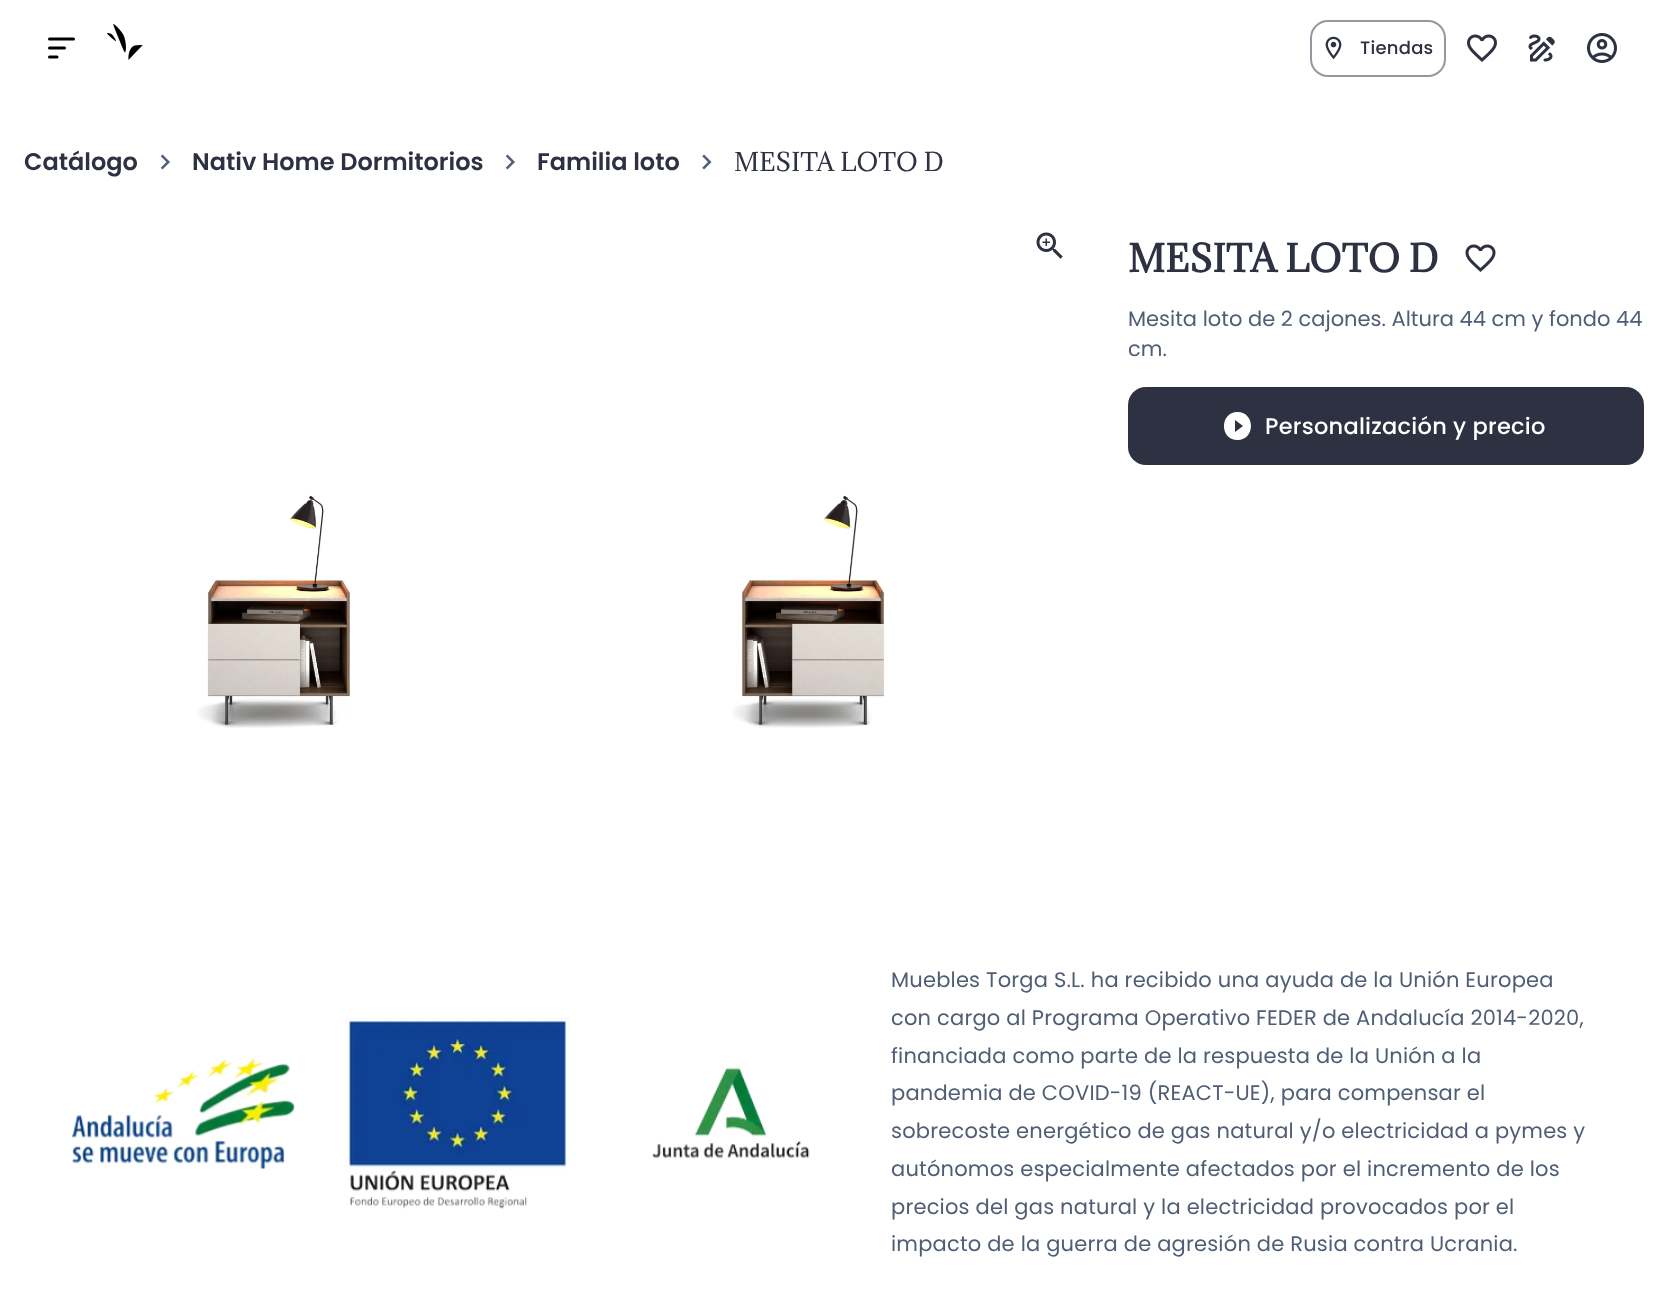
async function draw(canvas) {
  canvas.width = 1668;
  canvas.height = 1306;
  const ctx = canvas.getContext('2d');
  ctx.miterLimit = 4;
  ctx.fontKerning = 'normal';
  function label(s, x, y, font, color) {
    ctx.font = font;
    ctx.fillStyle = color;
    ctx.fillText(s, x, y);
  }
  function rect(x, y, w, h, color) {
    ctx.fillStyle = color;
    ctx.fillRect(x, y, w, h);
  }
  function roundedRect(x, y, w, h, r, color) {
    ctx.fillStyle = color;
    ctx.beginPath();
    ctx.roundRect(x, y, w, h, r);
    ctx.fill();
  }
  async function image(src, x, y, w, h) {
    const img = new Image();
    img.src = src;
    await img.decode();
    ctx.drawImage(img, x, y, w, h);
  }
  let path;

  rect(0, 0, 1668, 1306, '#fff');
  path = new Path2D('M49.5 39H73.5M49.5 48H64.5M49.5 57H57');
  ctx.strokeStyle = '#000';
  ctx.lineWidth = 3;
  ctx.lineCap = 'round';
  ctx.lineJoin = 'round';
  ctx.stroke(path);
  await image('assets/img1.png', 107, 24, 36, 36);
  ctx.beginPath();
  ctx.roundRect(1311, 21, 134, 55, 17);
  ctx.strokeStyle = '#9698a1';
  ctx.lineWidth = 2;
  ctx.lineJoin = 'miter';
  ctx.stroke();
  await image('assets/img2.png', 1325, 36, 17, 24);
  ctx.letterSpacing = '0.25px';
  label('Tiendas', 1360, 54, '500 18px Poppins', '#2d3142');
  await image('assets/img3.png', 1467, 34, 30, 28);
  await image('assets/img4.png', 1528, 34, 27, 28);
  await image('assets/img5.png', 1587, 33, 30, 30);
  ctx.letterSpacing = '0px';
  label('Catálogo', 24, 170, '600 24px Poppins', '#2d3142');
  await image('assets/img6.png', 160, 154, 10, 16);
  label('Nativ Home Dormitorios', 192, 170, '600 24px Poppins', '#2d3142');
  await image('assets/img6.png', 505, 154, 10, 16);
  label('Familia loto', 537, 170, '600 24px Poppins', '#2d3142');
  await image('assets/img7.png', 702, 154, 10, 16);
  label('MESITA LOTO D', 734, 171, '24px Adamina', '#2d3142');
  await image('assets/img8.png', 1036, 232, 27, 27);
  await image('assets/img9.png', 197, 495, 154, 233);
  await image('assets/img10.png', 732, 495, 153, 233);
  label('MESITA LOTO D', 1128, 272, 'bold 35.5px Adamina', '#2d3142');
  await image('assets/img11.png', 1465, 244, 31, 28);
  label('Mesita loto de 2 cajones. Altura 44 cm y fondo 44', 1128, 326, '21px Poppins', '#4f5d75');
  label('cm.', 1128, 356, '21px Poppins', '#4f5d75');
  roundedRect(1128, 387, 516, 78, 18, '#2d3142');
  ctx.fillStyle = '#fff';
  path = new Path2D('M1237.5 412C1219.5 412 1219.5 440 1237.5 440C1255.5 440 1255.5 412 1237.5 412M1235 432V420L1243 426Z');
  ctx.fill(path);
  ctx.letterSpacing = '0.25px';
  label('Personalización y precio', 1265, 434, '500 22.5px Poppins', '#fff');
  await image('assets/img12.png', 72, 1057, 223, 112);
  await image('assets/img13.png', 345, 1017, 225, 192);
  await image('assets/img14.png', 652, 1067, 158, 92);
  ctx.letterSpacing = '0.2px';
  label('Muebles Torga S.L. ha recibido una ayuda de la Unión Europea', 891, 987, '21px Poppins', '#4f5d75');
  label('con cargo al Programa Operativo FEDER de Andalucía 2014-2020,', 891, 1025, '21px Poppins', '#4f5d75');
  label('financiada como parte de la respuesta de la Unión a la', 891, 1063, '21px Poppins', '#4f5d75');
  label('pandemia de COVID-19 (REACT-UE), para compensar el', 891, 1100, '21px Poppins', '#4f5d75');
  label('sobrecoste energético de gas natural y/o electricidad a pymes y', 891, 1138, '21px Poppins', '#4f5d75');
  label('autónomos especialmente afectados por el incremento de los', 891, 1176, '21px Poppins', '#4f5d75');
  label('precios del gas natural y la electricidad provocados por el', 891, 1214, '21px Poppins', '#4f5d75');
  label('impacto de la guerra de agresión de Rusia contra Ucrania.', 891, 1251, '21px Poppins', '#4f5d75');
}

draw(document.querySelector('canvas'));
